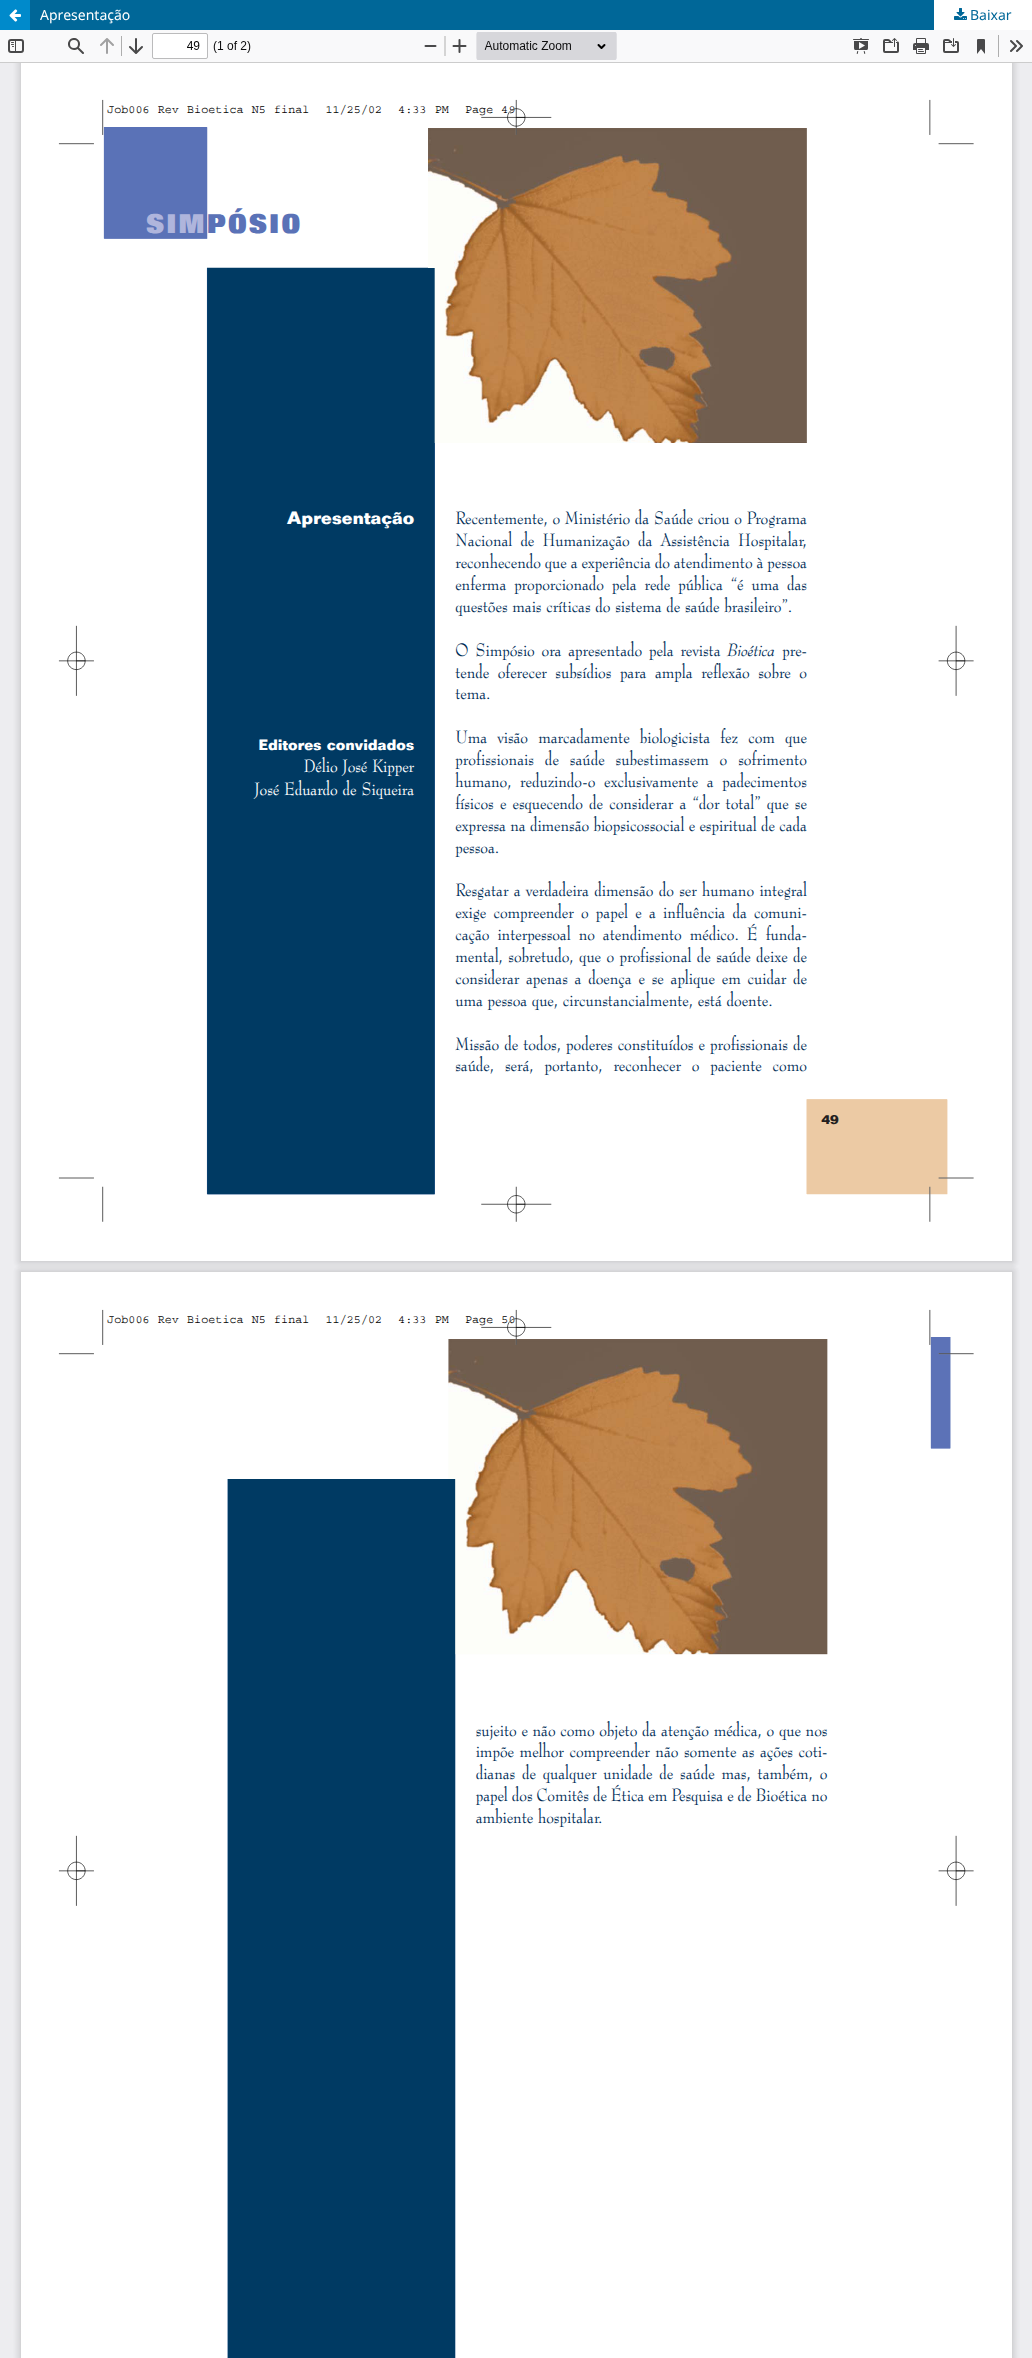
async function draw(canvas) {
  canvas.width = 1032;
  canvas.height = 2358;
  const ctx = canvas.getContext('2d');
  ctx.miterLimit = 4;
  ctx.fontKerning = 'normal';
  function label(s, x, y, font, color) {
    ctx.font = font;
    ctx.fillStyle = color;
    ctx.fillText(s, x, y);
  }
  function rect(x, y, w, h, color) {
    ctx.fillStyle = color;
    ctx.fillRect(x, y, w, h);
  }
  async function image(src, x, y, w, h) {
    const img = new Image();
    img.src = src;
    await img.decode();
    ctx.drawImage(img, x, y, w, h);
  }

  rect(0, 0, 1032, 2358, '#fff');
  rect(30, 0, 904, 30, '#006798');
  rect(0, 0, 30, 30, '#008acb');
  await image('assets/img1.png', 9, 9, 12, 13);
  label('Apresentação', 40, 20, '14px Noto Sans', '#fff');
  await image('assets/img2.png', 954, 8, 13, 12);
  label('Baixar', 970, 20, '14px Noto Sans', '#006798');
  await image('assets/img3.png', 0, 30, 1032, 2328);
}

draw(document.querySelector('canvas'));
